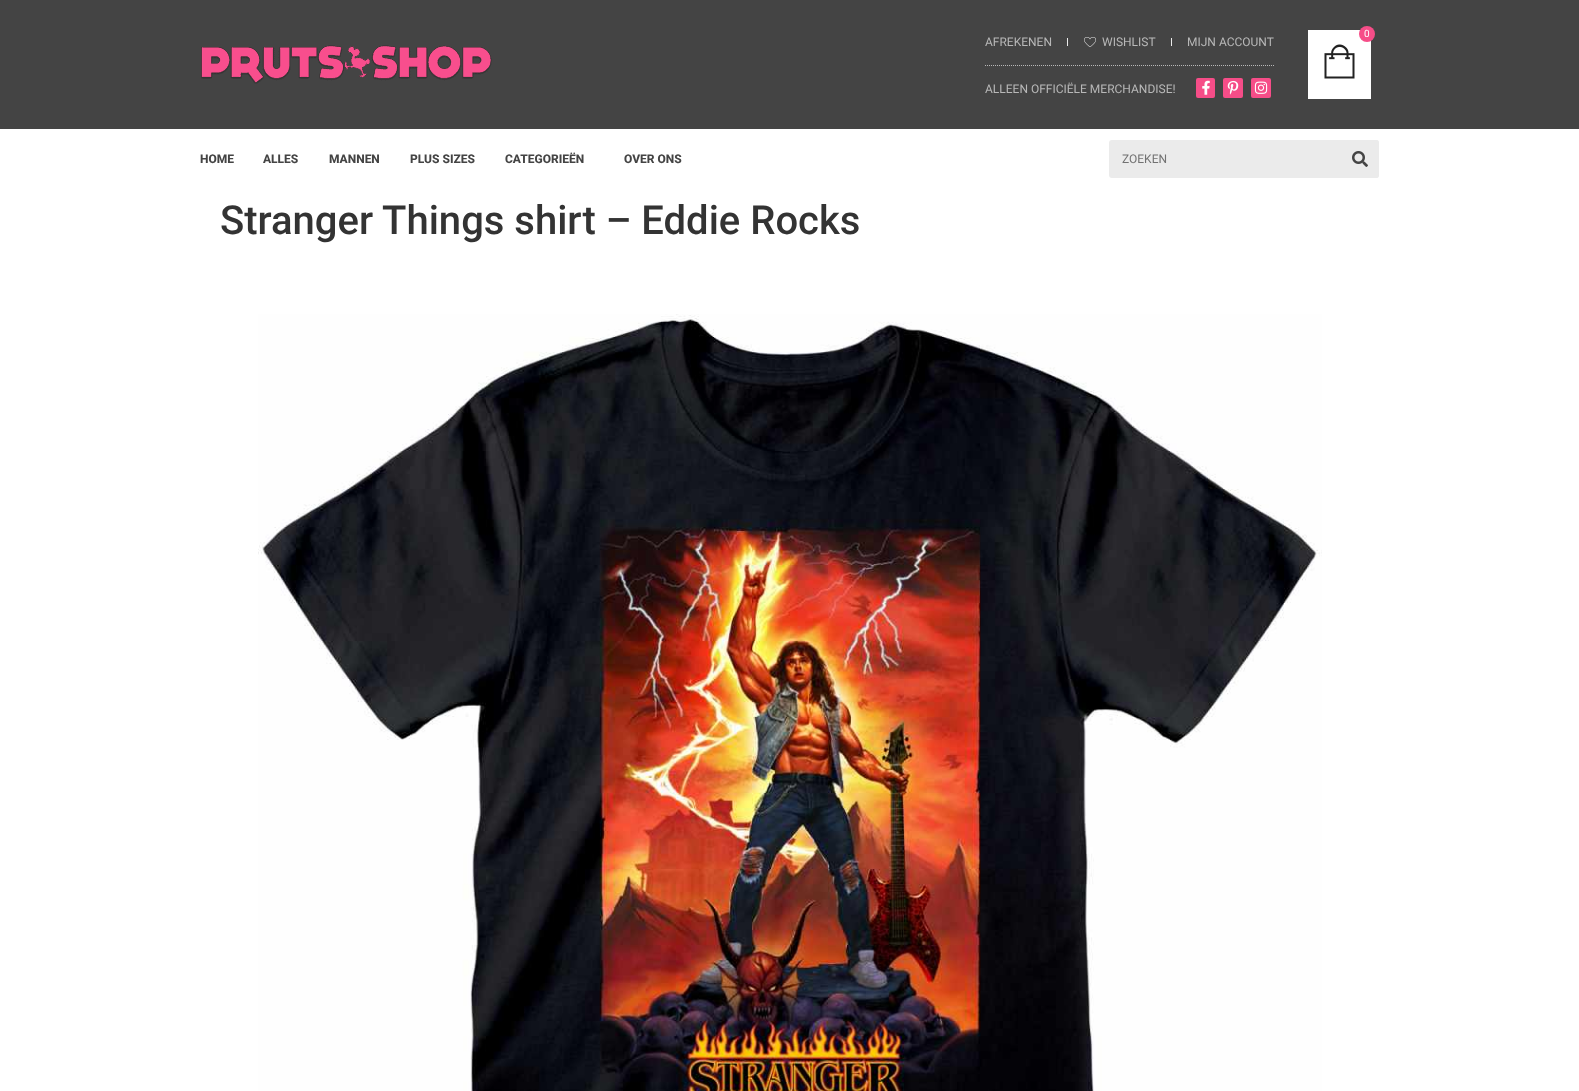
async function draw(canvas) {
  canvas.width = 1579;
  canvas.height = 1091;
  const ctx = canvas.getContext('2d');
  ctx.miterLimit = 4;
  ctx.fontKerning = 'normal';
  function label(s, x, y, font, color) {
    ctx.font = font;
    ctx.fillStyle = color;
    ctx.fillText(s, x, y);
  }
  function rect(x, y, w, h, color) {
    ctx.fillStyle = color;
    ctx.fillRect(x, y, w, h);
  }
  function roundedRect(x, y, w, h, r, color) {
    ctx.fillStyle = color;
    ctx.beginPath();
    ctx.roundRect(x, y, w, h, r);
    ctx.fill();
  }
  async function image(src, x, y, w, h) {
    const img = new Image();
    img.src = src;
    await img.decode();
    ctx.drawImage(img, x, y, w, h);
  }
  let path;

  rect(0, 0, 1579, 1091, '#fff');
  rect(0, 0, 1579, 129, '#444');
  rect(1308, 30, 63, 69, '#fff');
  ctx.fillStyle = '#f64d88';
  ctx.beginPath();
  ctx.arc(1367, 34, 8, 0, 2 * Math.PI);
  ctx.fill();
  label('0', 1364, 37, '10px Roboto', '#fff');
  await image('assets/img1.png', 1324, 44, 31, 35);
  await image('assets/img2.png', 201, 45, 291, 39);
  label('AFREKENEN', 985, 46, '12px Roboto', '#b8b8b8');
  rect(1067, 38, 1, 8, '#ebebeb');
  await image('assets/img3.png', 1084, 37, 12, 10);
  label('WISHLIST', 1102, 46, '12px Roboto', '#b8b8b8');
  rect(1171, 38, 1, 8, '#ebebeb');
  label('MIJN ACCOUNT', 1187, 46, '12px Roboto', '#b8b8b8');
  path = new Path2D('M985 65.5H1275');
  ctx.strokeStyle = '#b8b8b8';
  ctx.setLineDash([1, 1]);
  ctx.stroke(path);
  label('ALLEEN OFFICIËLE MERCHANDISE!', 985, 93, '12px Roboto', '#b8b8b8');
  roundedRect(1196, 78, 19, 20, 2, '#f64d88');
  await image('assets/img4.png', 1202, 80, 8, 15);
  roundedRect(1223, 78, 20, 20, 2, '#f64d88');
  await image('assets/img5.png', 1227, 80, 12, 15);
  roundedRect(1251, 78, 20, 20, 2, '#f64d88');
  await image('assets/img6.png', 1254, 81, 14, 13);
  label('HOME', 200, 163, '800 12px Roboto', '#444');
  label('ALLES', 263, 163, '800 12px Roboto', '#444');
  label('MANNEN', 329, 163, '800 12px Roboto', '#444');
  label('PLUS SIZES', 410, 163, '800 12px Roboto', '#444');
  label('CATEGORIEËN', 505, 163, '800 12px Roboto', '#444');
  label('OVER ONS', 624, 163, '800 12px Roboto', '#444');
  roundedRect(1109, 140, 270, 38, 3, '#ebebeb');
  label('ZOEKEN', 1122, 163, '12px Roboto', '#727272');
  ctx.fillStyle = '#ebebeb';
  ctx.beginPath();
  ctx.roundRect(1341, 140, 38, 38, [0, 3, 3, 0]);
  ctx.fill();
  await image('assets/img7.png', 1352, 151, 16, 16);
  label('Stranger Things shirt – Eddie Rocks', 220, 234, '500 40px Roboto', '#333');
  await image('assets/img8.png', 258, 314, 1064, 777);
}

draw(document.querySelector('canvas'));
